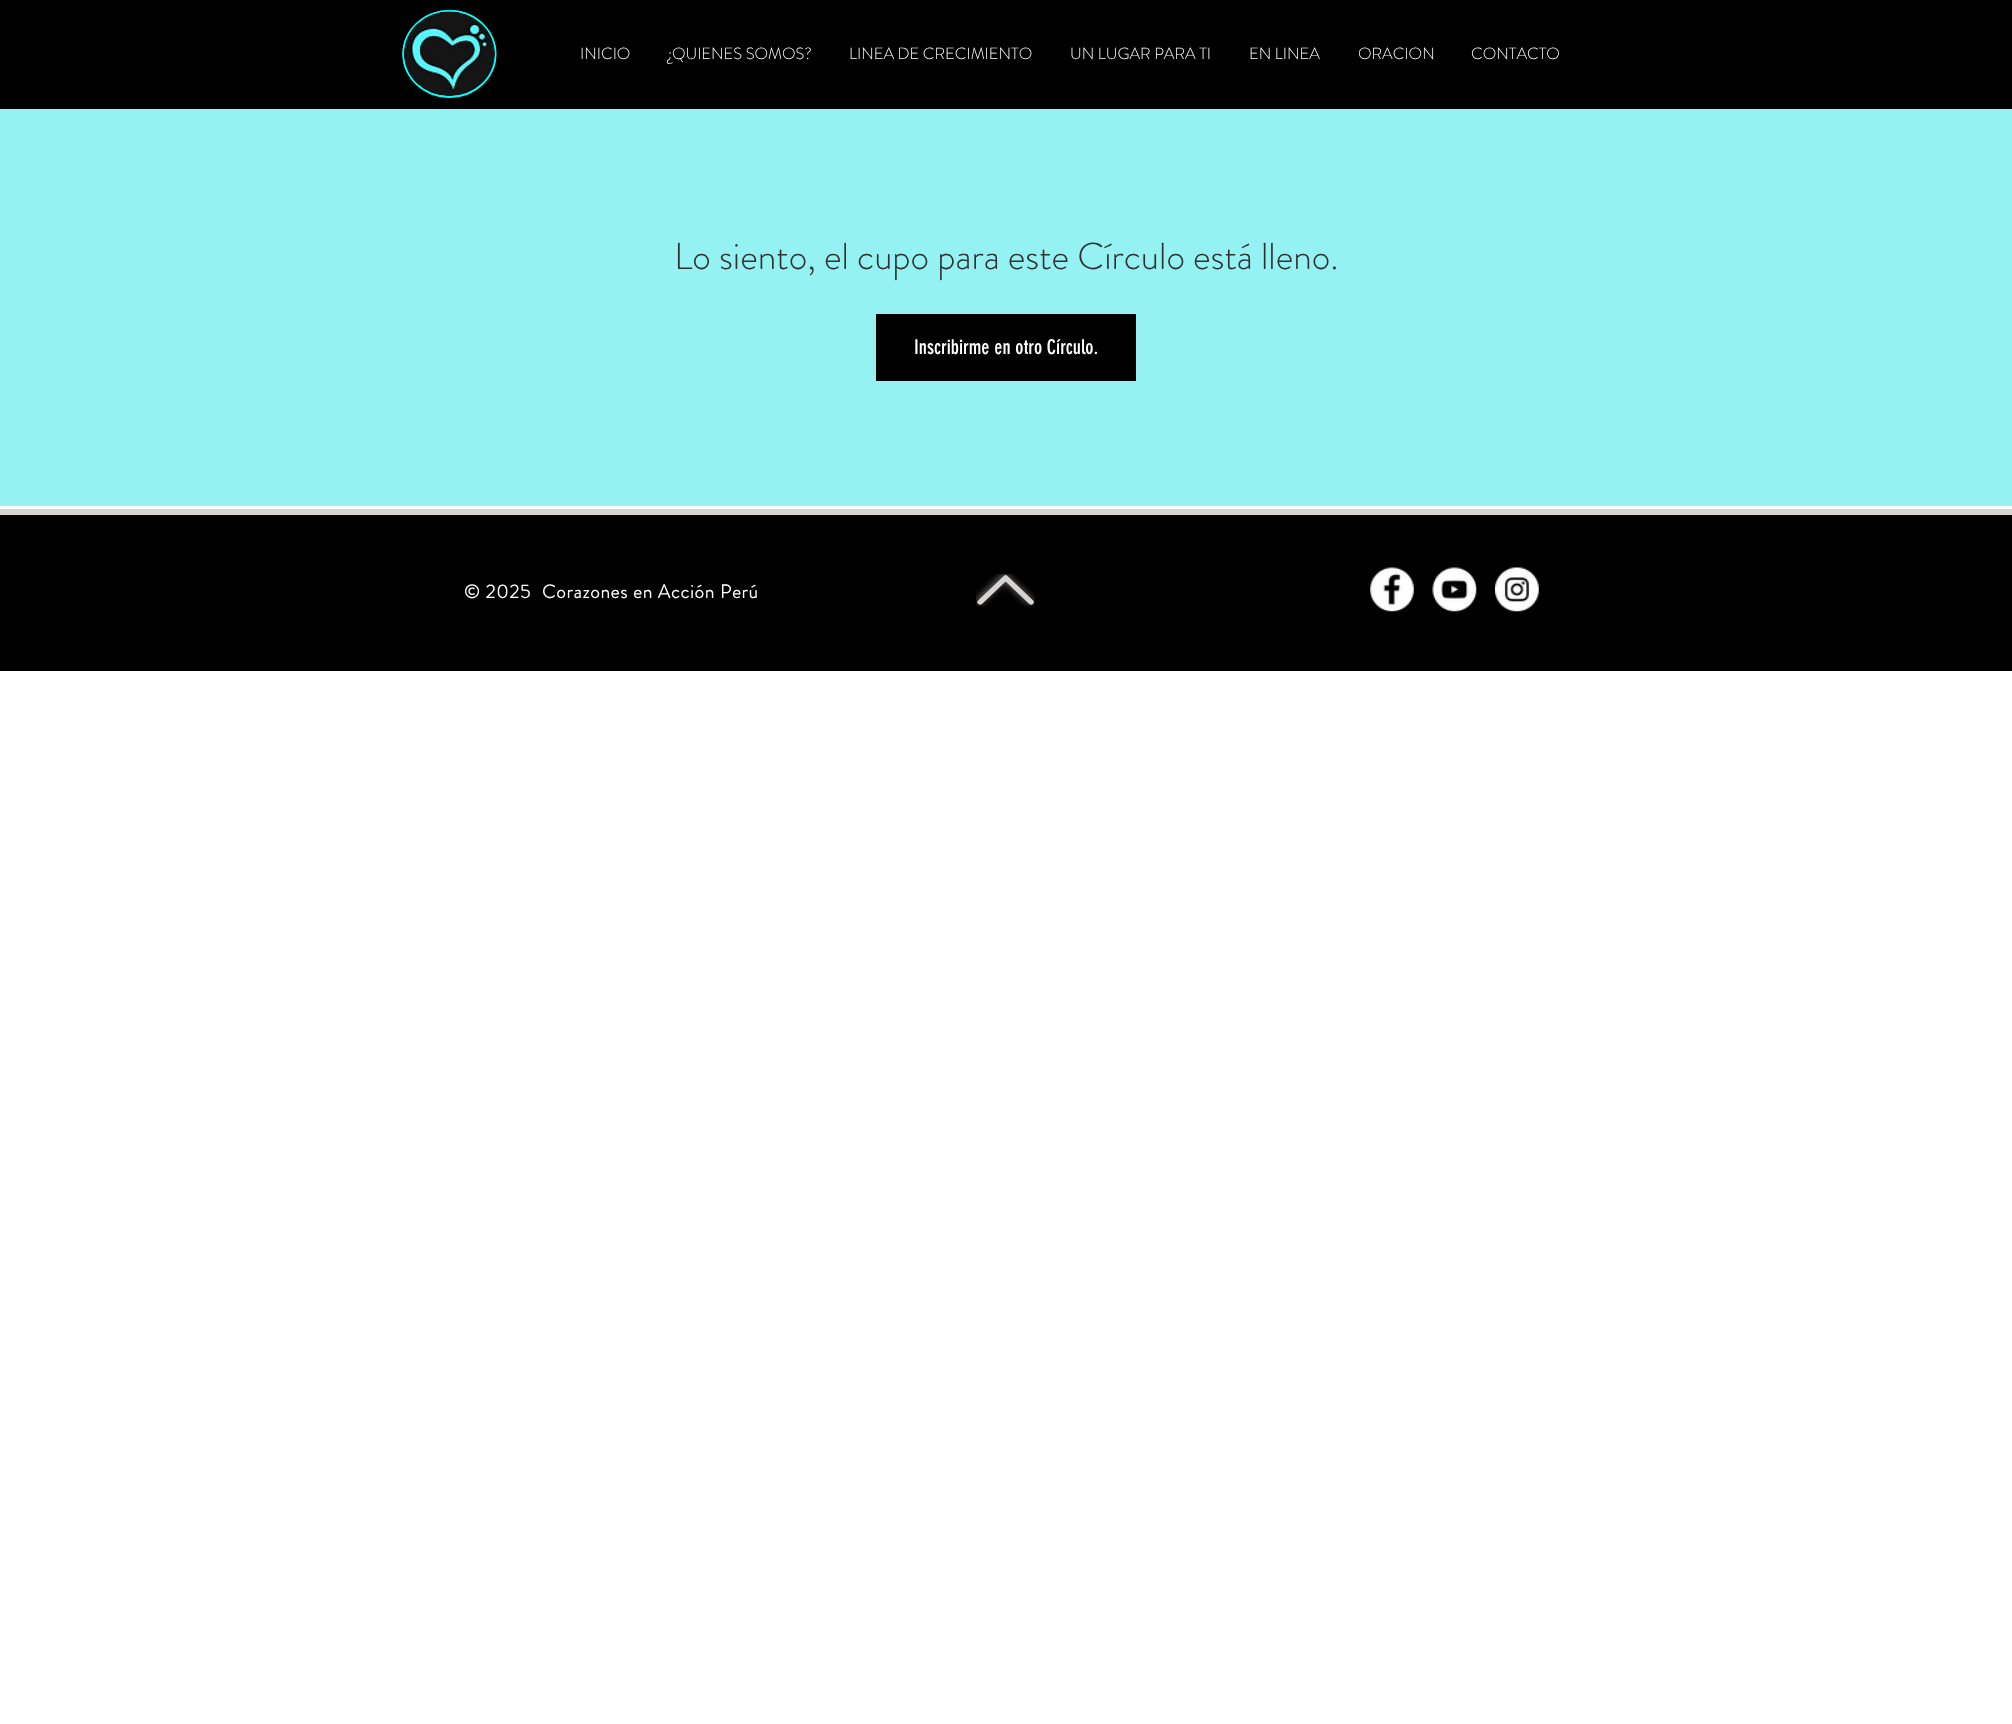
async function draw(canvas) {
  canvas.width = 2012;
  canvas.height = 1724;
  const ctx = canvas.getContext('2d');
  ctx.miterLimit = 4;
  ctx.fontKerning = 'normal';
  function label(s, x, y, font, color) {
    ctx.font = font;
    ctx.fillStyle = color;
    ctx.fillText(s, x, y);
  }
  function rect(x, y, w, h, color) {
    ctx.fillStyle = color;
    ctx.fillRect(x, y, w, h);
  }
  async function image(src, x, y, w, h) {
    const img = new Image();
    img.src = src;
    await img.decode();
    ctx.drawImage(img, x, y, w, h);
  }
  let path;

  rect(0, 0, 2012, 1724, '#fff');
  rect(0, 0, 2012, 109, '#000');
  ctx.fillStyle = '#0ff';
  ctx.beginPath();
  ctx.ellipse(449.5, 54, 47, 44, 0, 0, 2 * Math.PI);
  ctx.fill();
  path = new Path2D('M449.5 10.5C475 10.5 495.5 30 495.5 54C495.5 77.5 475 97 449.5 97C424 97 403 77.5 403 54C403 30 424 10.5 449.5 10.5Z');
  ctx.strokeStyle = '#0ff';
  ctx.lineWidth = 1.2;
  ctx.stroke(path);
  await image('assets/img1.png', 404, 11, 91, 85);
  label('INICIO', 580, 59, '300 16.25px "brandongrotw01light"', '#fff');
  label('¿QUIENES SOMOS?', 668, 59, '300 16.25px "brandongrotw01light"', '#fff');
  label('LINEA DE CRECIMIENTO', 849, 59, '300 16.25px "brandongrotw01light"', '#fff');
  label('UN LUGAR PARA TI', 1070, 59, '300 16.25px "brandongrotw01light"', '#fff');
  label('EN LINEA', 1249, 59, '300 16.25px "brandongrotw01light"', '#fff');
  label('ORACION', 1358, 59, '300 16.25px "brandongrotw01light"', '#fff');
  label('CONTACTO', 1471, 59, '300 16.25px "brandongrotw01light"', '#fff');
  rect(0, 109, 2012, 397, '#94f2f2');
  label('Lo siento, el cupo para este Círculo está lleno.', 674, 269, '300 37.5px "brandongrotw01light"', '#303030');
  rect(876, 314, 260, 67, '#000');
  label('Inscribirme en otro Círculo.', 914, 354, '20px "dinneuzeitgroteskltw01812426"', '#fff');
  rect(0, 515, 2012, 156, '#000');
  rect(0, 509, 2012, 6, '#d7d4d1');
  ctx.letterSpacing = '0.9px';
  label('© 2025', 464, 598, 'bold 18.75px "brandongrotw01light"', '#fff');
  label('Corazones en Acción Perú', 542, 598, 'bold 18.75px "brandongrotw01light"', '#fff');
  await image('assets/img2.png', 976, 574, 59, 32);
  await image('assets/img3.png', 1370, 567, 44, 45);
  await image('assets/img4.png', 1432, 567, 45, 45);
  await image('assets/img5.png', 1495, 567, 44, 45);
}

draw(document.querySelector('canvas'));
